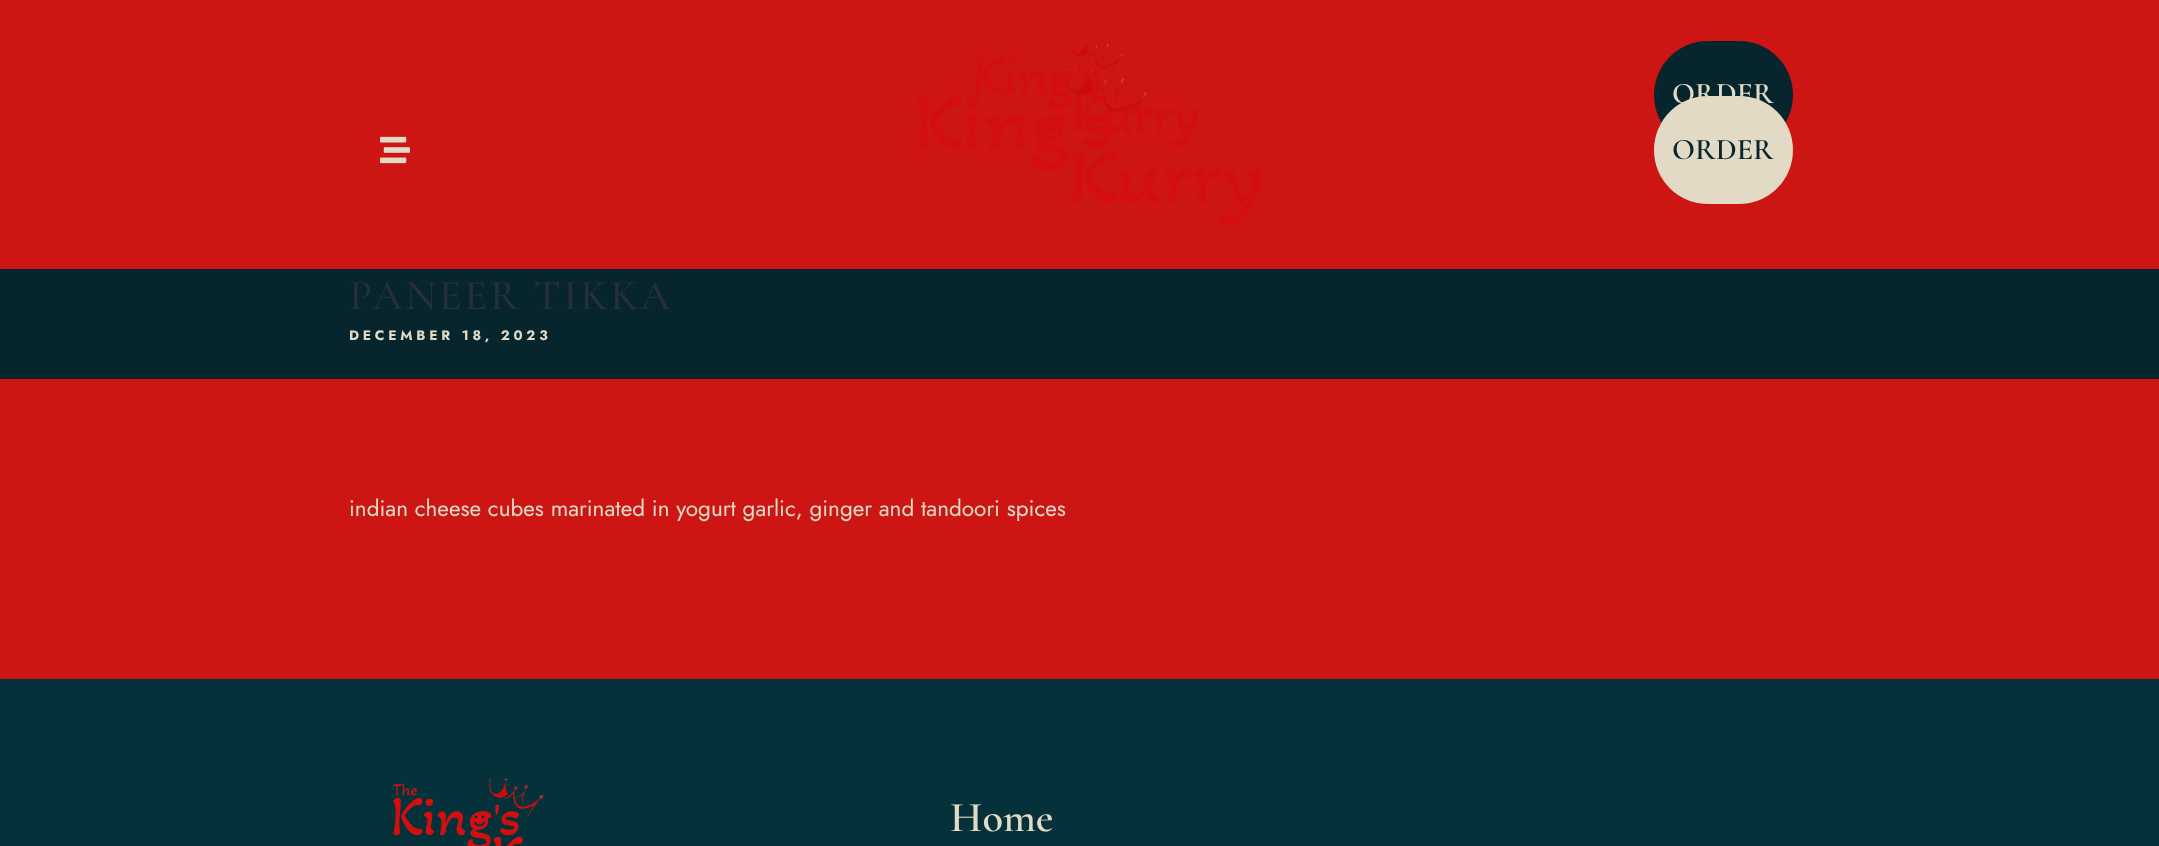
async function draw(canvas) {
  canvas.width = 2159;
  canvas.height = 846;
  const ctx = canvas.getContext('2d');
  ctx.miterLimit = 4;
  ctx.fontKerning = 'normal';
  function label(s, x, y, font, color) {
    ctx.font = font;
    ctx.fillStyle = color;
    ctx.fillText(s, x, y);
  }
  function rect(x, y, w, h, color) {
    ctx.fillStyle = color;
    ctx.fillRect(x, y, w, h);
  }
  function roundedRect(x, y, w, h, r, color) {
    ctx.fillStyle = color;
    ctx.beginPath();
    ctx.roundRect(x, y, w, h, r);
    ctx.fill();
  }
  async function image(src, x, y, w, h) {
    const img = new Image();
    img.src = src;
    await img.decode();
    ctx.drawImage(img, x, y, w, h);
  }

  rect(0, 0, 2159, 846, '#cd1614');
  await image('assets/img1.png', 974, 37, 224, 111);
  roundedRect(1654, 41, 139, 108, 54, '#07252d');
  label('ORDER', 1672, 103, '600 30px Cormorant Garamond', '#e3dac6');
  await image('assets/img2.png', 380, 136, 30, 28);
  await image('assets/img3.png', 917, 69, 344, 156);
  roundedRect(1654, 96, 139, 108, 54, '#e3dac6');
  label('ORDER', 1672, 159, '600 30px Cormorant Garamond', '#07252d');
  rect(0, 269, 2159, 110, '#07252d');
  ctx.letterSpacing = '2.5px';
  label('PANEER TIKKA', 349, 309, '500 42.5px Cormorant Garamond', '#272f3c');
  ctx.letterSpacing = '3.75px';
  label('DECEMBER 18, 2023', 349, 340, 'bold 13.75px Jost', '#e3dac6');
  ctx.letterSpacing = '0px';
  label('indian cheese cubes marinated in yogurt garlic, ginger and tandoori spices', 349, 516, '22.5px Jost', '#e3dac6');
  rect(0, 679, 2159, 167, '#05323a');
  await image('assets/img4.png', 393, 778, 151, 68);
  label('Home', 950, 831, '600 42.5px Cormorant Garamond', '#e3dac6');
}

draw(document.querySelector('canvas'));
